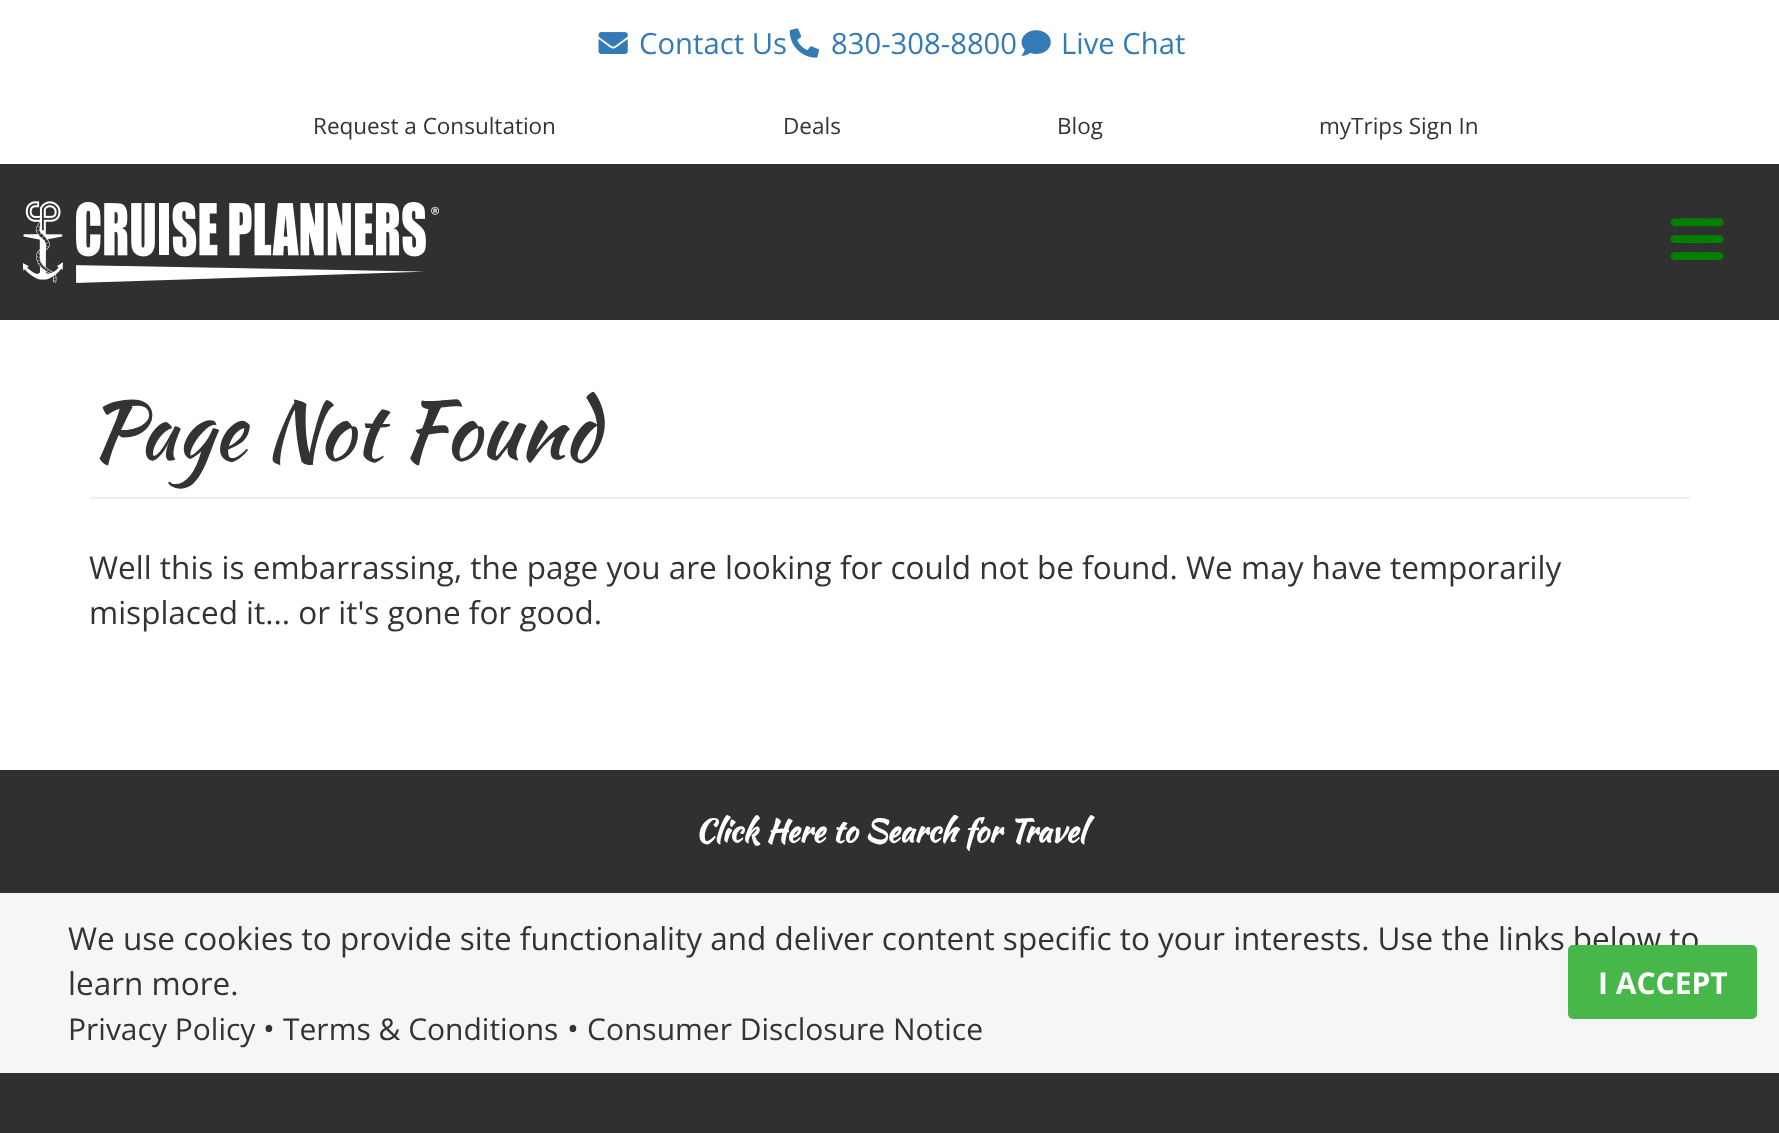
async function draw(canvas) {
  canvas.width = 1779;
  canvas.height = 1133;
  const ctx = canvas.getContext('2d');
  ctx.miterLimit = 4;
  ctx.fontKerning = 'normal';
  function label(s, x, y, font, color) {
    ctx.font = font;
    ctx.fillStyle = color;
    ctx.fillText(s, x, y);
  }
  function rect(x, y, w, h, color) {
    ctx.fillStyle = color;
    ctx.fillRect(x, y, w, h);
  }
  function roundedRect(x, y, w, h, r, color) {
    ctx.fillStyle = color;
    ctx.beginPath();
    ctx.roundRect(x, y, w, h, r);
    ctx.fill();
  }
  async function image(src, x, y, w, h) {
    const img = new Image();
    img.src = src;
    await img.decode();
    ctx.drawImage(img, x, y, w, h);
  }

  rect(0, 0, 1779, 1133, '#fff');
  await image('assets/img1.png', 598, 32, 30, 22);
  label('Contact Us', 639, 54, '29.25px Open Sans', '#337ab7');
  await image('assets/img2.png', 789, 28, 30, 30);
  label('830-308-8800', 831, 54, '29.25px Open Sans', '#337ab7');
  await image('assets/img3.png', 1021, 30, 30, 26);
  label('Live Chat', 1061, 54, '29.25px Open Sans', '#337ab7');
  label('Request a Consultation', 313, 134, '22.5px Open Sans', '#333');
  label('Deals', 783, 134, '22.5px Open Sans', '#333');
  label('Blog', 1057, 134, '22.5px Open Sans', '#333');
  label('myTrips Sign In', 1319, 134, '22.5px Open Sans', '#333');
  rect(0, 164, 1779, 156, '#303030');
  await image('assets/img4.png', 23, 201, 416, 82);
  await image('assets/img5.png', 1670, 218, 54, 42);
  rect(90, 497, 1600, 2, '#eee');
  label('Page Not Found', 89, 459, '81px Kaushan Script', '#333');
  label('Well this is embarrassing, the page you are looking for could not be found. We may have temporarily', 89, 579, '31.5px Open Sans', '#333');
  label('misplaced it... or it\'s gone for good.', 89, 624, '31.5px Open Sans', '#333');
  rect(0, 770, 1779, 123, '#303030');
  label('Click Here to Search for Travel', 695, 842, 'bold 31.5px Kaushan Script', '#fff');
  rect(0, 893, 1779, 180, '#f6f6f8');
  label('We use cookies to provide site functionality and deliver content specific to your interests. Use the links below to', 68, 950, '31.5px Open Sans', '#333');
  label('learn more.', 68, 995, '31.5px Open Sans', '#333');
  roundedRect(1568, 945, 189, 74, 5, '#48b749');
  label('I ACCEPT', 1598, 994, 'bold 30px Open Sans', '#fff');
  label('Privacy Policy', 68, 1040, '30px Open Sans', '#333');
  label('•', 263, 1040, '31.5px Open Sans', '#333');
  label('Terms & Conditions', 283, 1040, '30px Open Sans', '#333');
  label('•', 567, 1040, '31.5px Open Sans', '#333');
  label('Consumer Disclosure Notice', 587, 1040, '30px Open Sans', '#333');
  rect(0, 1073, 1779, 60, '#303030');
}

draw(document.querySelector('canvas'));
